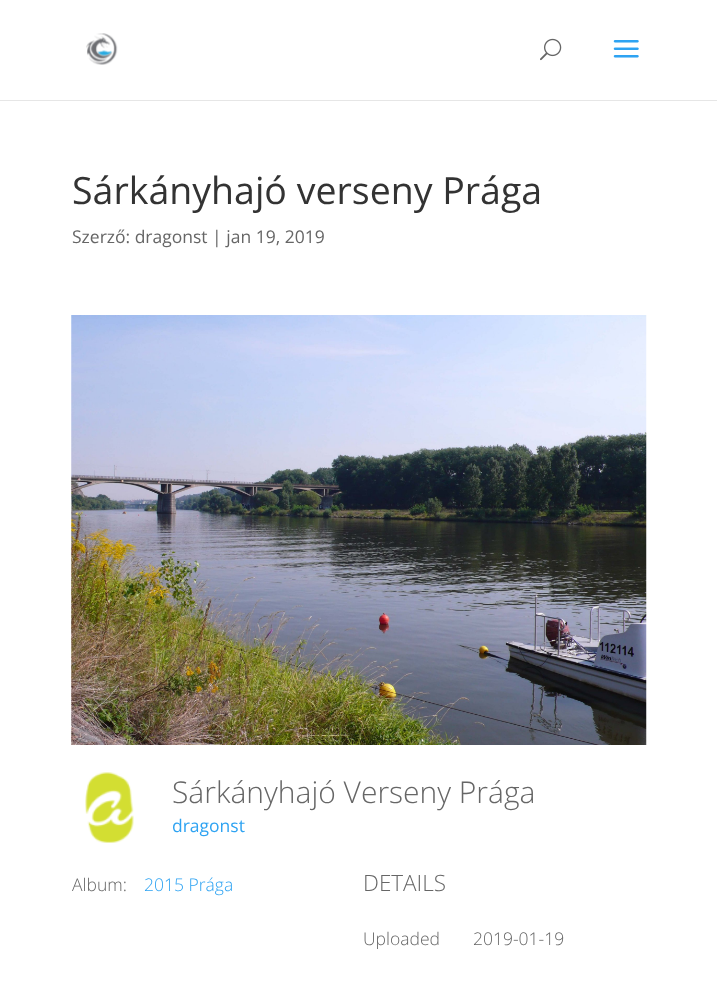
async function draw(canvas) {
  canvas.width = 717;
  canvas.height = 1004;
  const ctx = canvas.getContext('2d');
  ctx.miterLimit = 4;
  ctx.fontKerning = 'normal';
  function label(s, x, y, font, color) {
    ctx.font = font;
    ctx.fillStyle = color;
    ctx.fillText(s, x, y);
  }
  function rect(x, y, w, h, color) {
    ctx.fillStyle = color;
    ctx.fillRect(x, y, w, h);
  }
  async function image(src, x, y, w, h) {
    const img = new Image();
    img.src = src;
    await img.decode();
    ctx.drawImage(img, x, y, w, h);
  }
  let path;

  rect(0, 0, 717, 1004, '#fff');
  ctx.fillStyle = '#e6e6e6';
  path = new Path2D('M0 100V101H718V1V100Z');
  ctx.fill(path);
  await image('assets/img1.png', 86, 33, 32, 32);
  await image('assets/img2.png', 540, 38, 22, 23);
  await image('assets/img3.png', 613, 40, 26, 18);
  label('Sárkányhajó verseny Prága', 72, 204, '37.5px Open Sans', '#333');
  label('Szerző: dragonst | jan 19, 2019', 72, 243, '17.5px Open Sans', '#666');
  await image('assets/img4.png', 71, 315, 576, 430);
  await image('assets/img5.png', 85, 772, 49, 71);
  label('Sárkányhajó Verseny Prága', 172, 803, '300 30px Open Sans', '#666');
  label('dragonst', 172, 832, '17.5px Open Sans', '#2ea3f2');
  label('Album:', 72, 891, '300 17.5px Open Sans', '#666');
  label('2015 Prága', 144, 891, '300 17.5px Open Sans', '#2ea3f2');
  label('DETAILS', 363, 891, '300 22.5px Open Sans', '#666');
  label('Uploaded', 363, 945, '300 17.5px Open Sans', '#666');
  label('2019-01-19', 473, 945, '300 17.5px Open Sans', '#666');
}

draw(document.querySelector('canvas'));
